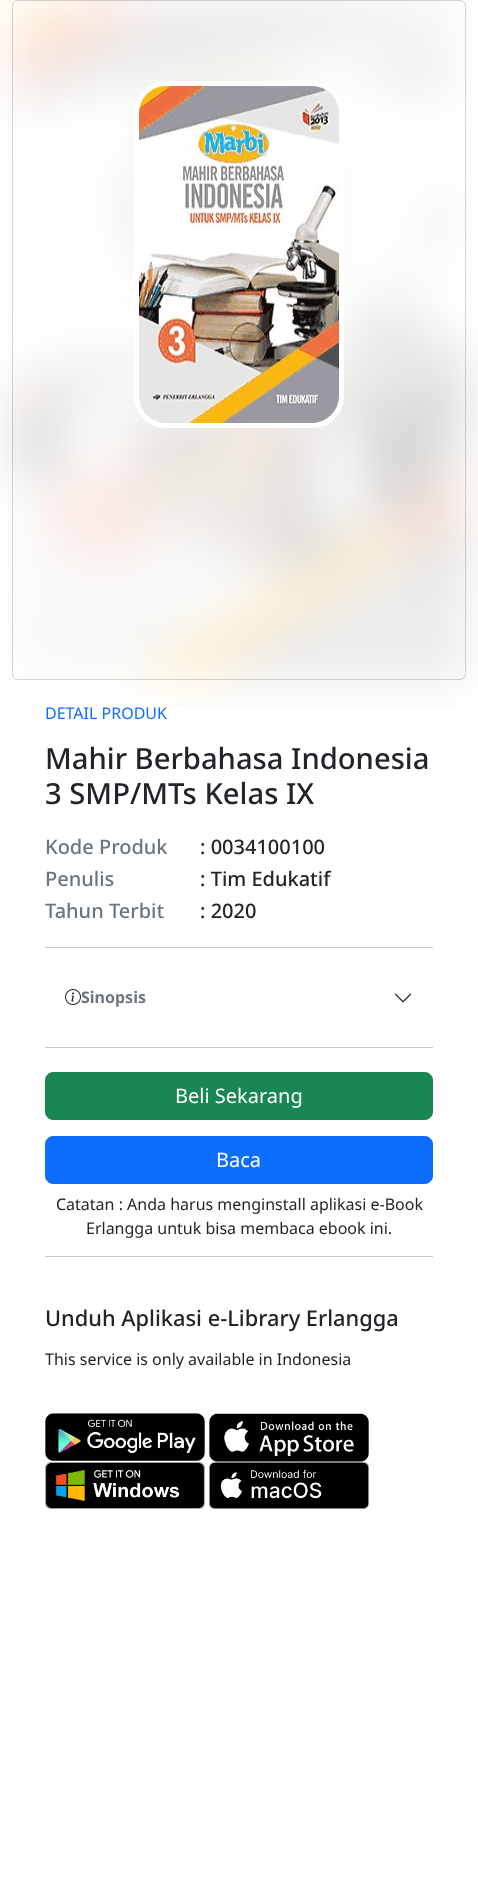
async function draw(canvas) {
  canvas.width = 478;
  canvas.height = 1882;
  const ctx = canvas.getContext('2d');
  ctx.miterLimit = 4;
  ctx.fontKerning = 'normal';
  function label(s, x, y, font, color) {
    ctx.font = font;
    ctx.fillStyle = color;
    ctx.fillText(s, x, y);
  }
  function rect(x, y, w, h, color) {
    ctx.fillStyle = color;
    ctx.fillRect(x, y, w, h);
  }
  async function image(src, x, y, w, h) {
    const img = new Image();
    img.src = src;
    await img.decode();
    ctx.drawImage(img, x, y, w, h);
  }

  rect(0, 0, 478, 1882, '#fff');
  ctx.beginPath();
  ctx.roundRect(12.5, 0.5, 453, 679, 5.5);
  ctx.strokeStyle = '#d2d2d2';
  ctx.stroke();
  label('DETAIL PRODUK', 45, 719, '16px Noto Sans', '#0d6efd');
  await image('assets/img1.png', 0, 0, 478, 708);
  ctx.beginPath();
  ctx.roundRect(136.5, 83.5, 205, 342, 29.5);
  ctx.strokeStyle = '#fff';
  ctx.lineWidth = 5;
  ctx.stroke();
  await image('assets/img2.png', 139, 86, 200, 337);
  label('Mahir Berbahasa Indonesia', 45, 769, '500 29.2px Noto Sans', '#212529');
  label('3 SMP/MTs Kelas IX', 45, 804, '500 29.2px Noto Sans', '#212529');
  label('Kode Produk', 45, 854, '500 20px Noto Sans', '#6c757d');
  label(': 0034100100', 200, 854, '500 20px Noto Sans', '#212529');
  label('Penulis', 45, 886, '500 20px Noto Sans', '#6c757d');
  label(': Tim Edukatif', 200, 886, '500 20px Noto Sans', '#212529');
  label('Tahun Terbit', 45, 918, '500 20px Noto Sans', '#6c757d');
  label(': 2020', 200, 918, '500 20px Noto Sans', '#212529');
  rect(45, 947, 388, 1, '#c8c9ca');
  await image('assets/img3.png', 65, 989, 16, 16);
  label('Sinopsis', 81, 1003, 'bold 16px Noto Sans', '#6c757d');
  await image('assets/img4.png', 394, 993, 18, 10);
  rect(45, 1047, 388, 1, '#c8c9ca');
  ctx.fillStyle = '#198754';
  ctx.beginPath();
  ctx.roundRect(45.5, 1072.5, 387, 47, 7.5);
  ctx.fill();
  ctx.strokeStyle = '#198754';
  ctx.lineWidth = 1;
  ctx.stroke();
  label('Beli Sekarang', 175, 1103, '20px Noto Sans', '#fff');
  ctx.fillStyle = '#0d6efd';
  ctx.beginPath();
  ctx.roundRect(45.5, 1136.5, 387, 47, 7.5);
  ctx.fill();
  ctx.strokeStyle = '#0d6efd';
  ctx.stroke();
  label('Baca', 216, 1167, '20px Noto Sans', '#fff');
  label('Catatan : Anda harus menginstall aplikasi e-Book', 56, 1210, '16px Noto Sans', '#212529');
  label('Erlangga untuk bisa membaca ebook ini.', 86, 1234, '16px Noto Sans', '#212529');
  rect(45, 1256, 388, 1, '#c8c9ca');
  label('Unduh Aplikasi e-Library Erlangga', 45, 1326, '500 21.8px Noto Sans', '#212529');
  label('This service is only available in Indonesia', 45, 1365, '16px Noto Sans', '#212529');
  await image('assets/img5.png', 45, 1413, 160, 48);
  await image('assets/img6.png', 209, 1413, 160, 49);
  await image('assets/img7.png', 45, 1462, 160, 47);
  await image('assets/img8.png', 209, 1462, 160, 47);
}

draw(document.querySelector('canvas'));
